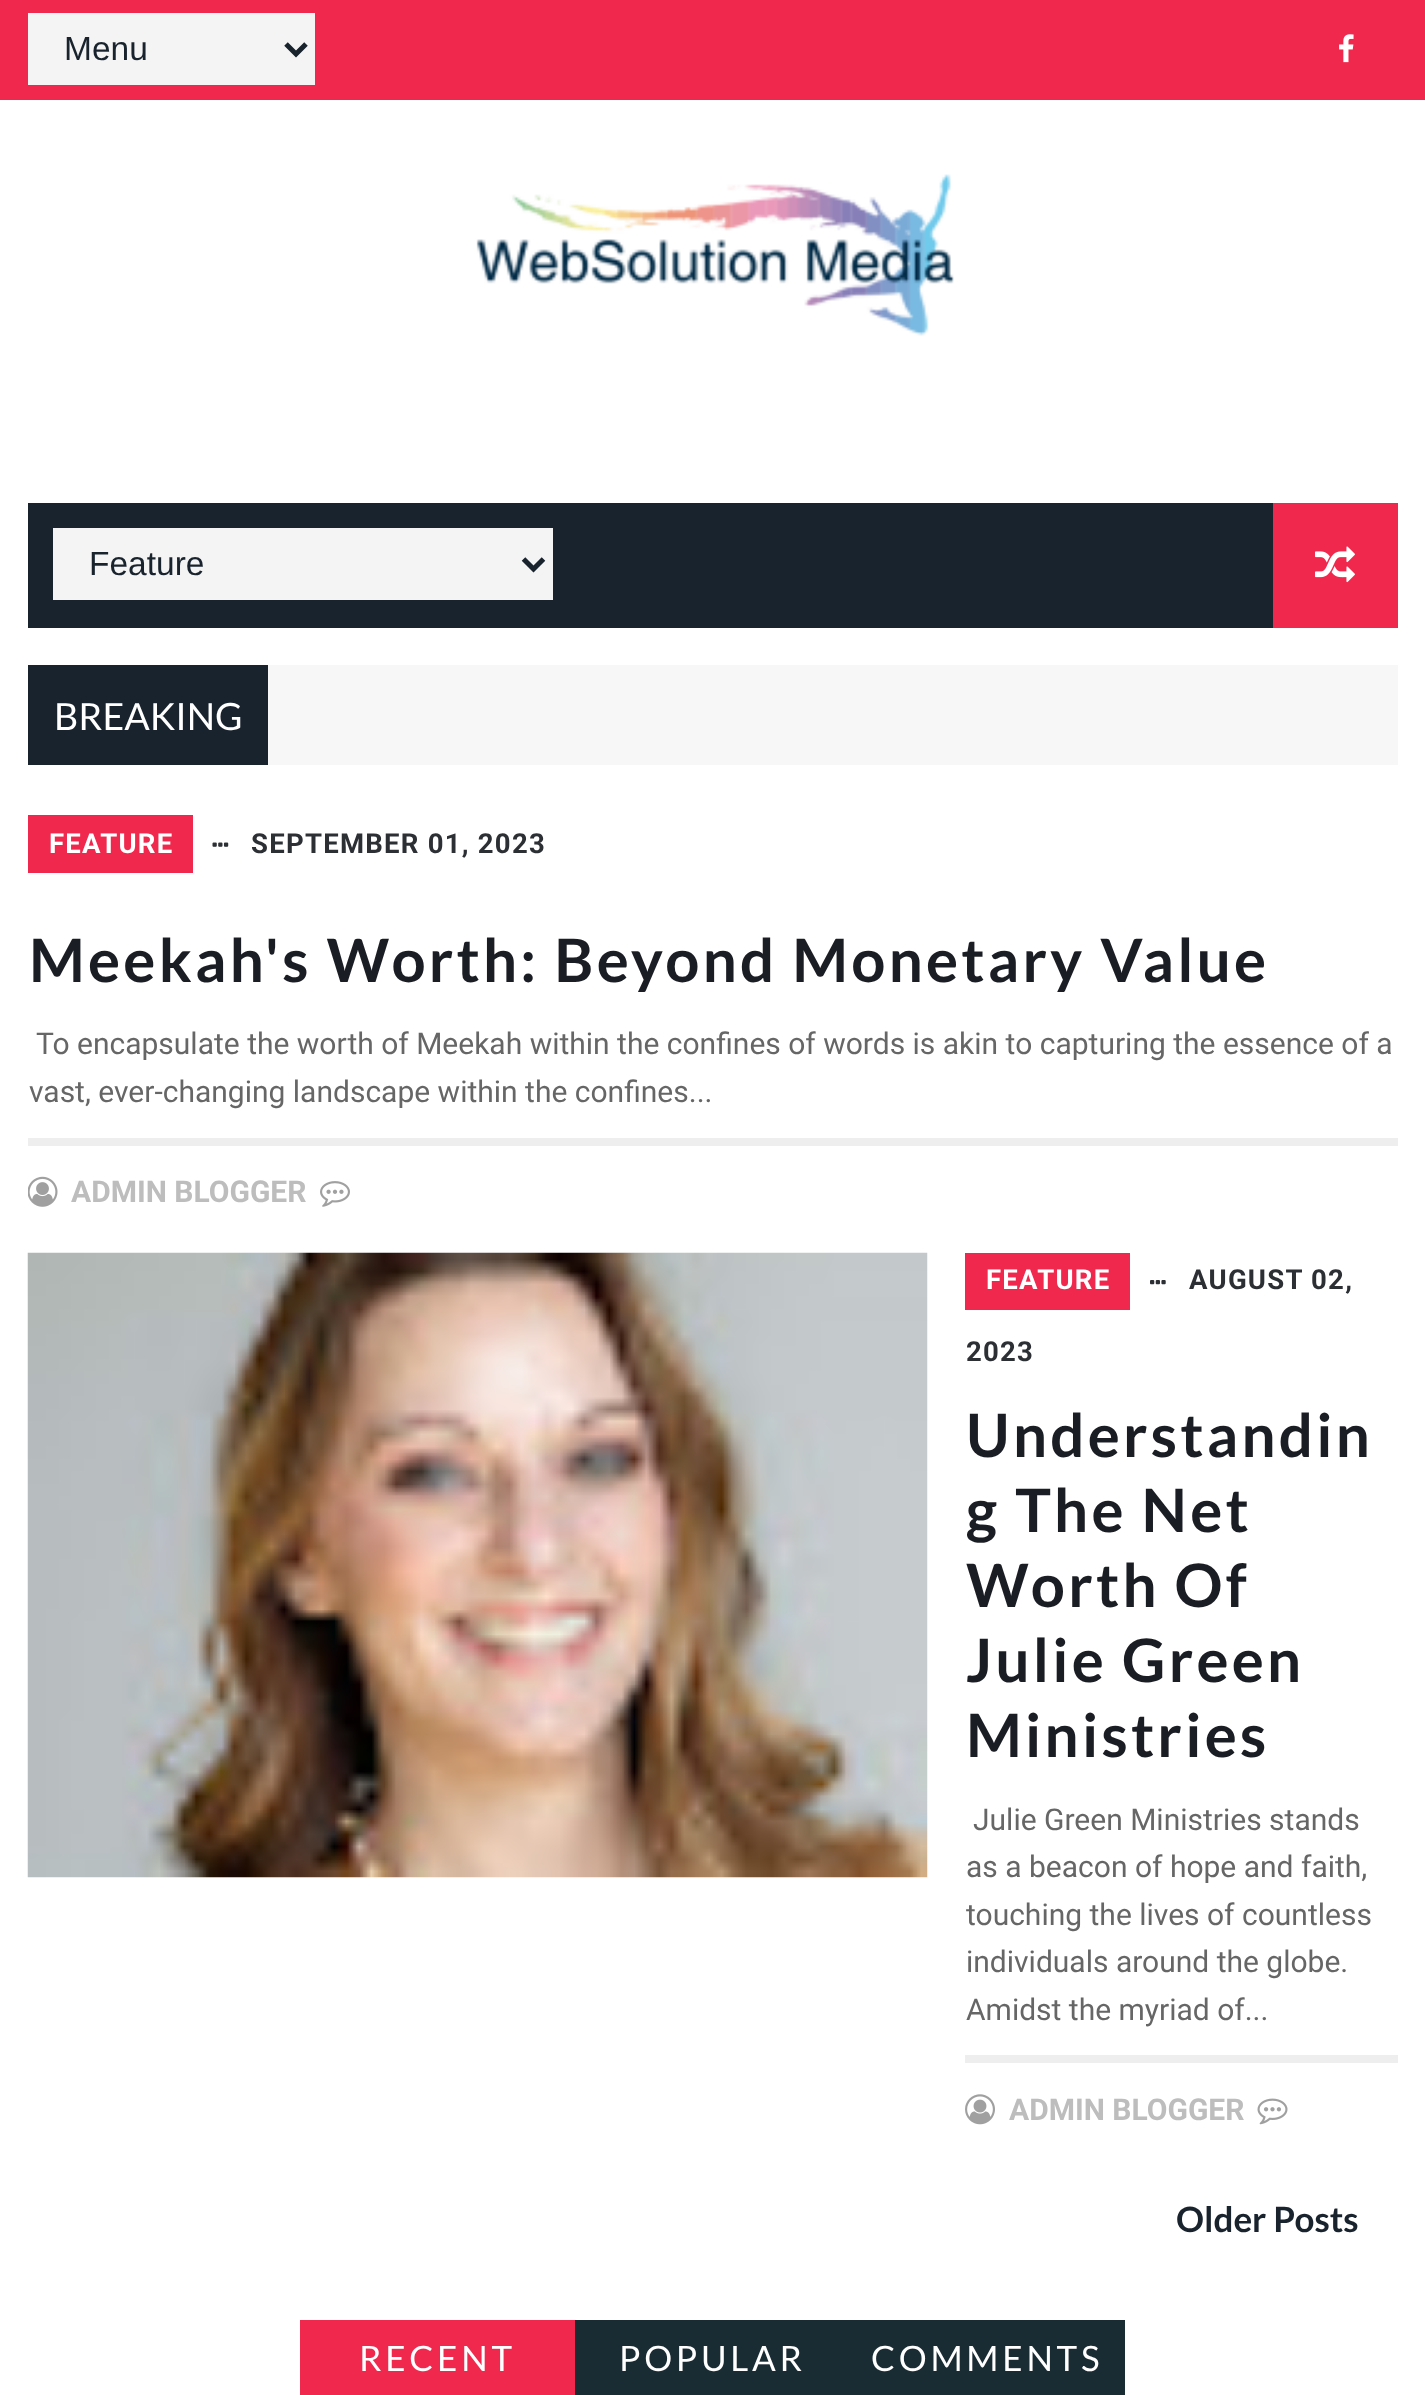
async function draw(canvas) {
  canvas.width = 1425;
  canvas.height = 2395;
  const ctx = canvas.getContext('2d');
  ctx.miterLimit = 4;
  ctx.fontKerning = 'normal';
  function label(s, x, y, font, color) {
    ctx.font = font;
    ctx.fillStyle = color;
    ctx.fillText(s, x, y);
  }
  function rect(x, y, w, h, color) {
    ctx.fillStyle = color;
    ctx.fillRect(x, y, w, h);
  }
  async function image(src, x, y, w, h) {
    const img = new Image();
    img.src = src;
    await img.decode();
    ctx.drawImage(img, x, y, w, h);
  }
  let path;

  rect(0, 0, 1425, 2395, '#fff');
  rect(0, 0, 1425, 100, '#f1284e');
  rect(28, 13, 287, 72, '#f4f4f4');
  path = new Path2D('M286 44L296 54L306 44');
  ctx.strokeStyle = '#19232d';
  ctx.lineWidth = 5;
  ctx.stroke(path);
  label('Menu', 64, 60, '33.5px Liberation Sans', '#19232d');
  await image('assets/img1.png', 1339, 34, 15, 29);
  await image('assets/img2.png', 476, 174, 478, 162);
  rect(28, 503, 1245, 125, '#19232d');
  rect(53, 528, 500, 72, '#f4f4f4');
  path = new Path2D('M523.5 559L533.5 569L543.5 559');
  ctx.stroke(path);
  label('Feature', 89, 575, '33.5px Liberation Sans', '#19232d');
  rect(1273, 503, 125, 125, '#f1284e');
  await image('assets/img3.png', 1315, 546, 40, 37);
  rect(268, 665, 1130, 100, '#f7f7f7');
  rect(28, 665, 240, 100, '#19232d');
  label('BREAKING', 54, 730, '37.5px Lato', '#fff');
  rect(28, 815, 165, 58, '#f1284e');
  ctx.letterSpacing = '1.25px';
  label('FEATURE', 49, 853, 'bold 27.5px Roboto', '#fff');
  await image('assets/img4.png', 212, 842, 17, 5);
  label('SEPTEMBER 01, 2023', 251, 853, 'bold 27.5px Roboto', '#2c2f34');
  ctx.letterSpacing = '3.25px';
  label('Meekah\'s Worth: Beyond Monetary Value', 29, 982, 'bold 60px Lato', '#1b1d25');
  ctx.letterSpacing = '0px';
  label('To encapsulate the worth of Meekah within the confines of words is akin to capturing the essence of a', 36, 1054, '30px Roboto', '#666');
  label('vast, ever-changing landscape within the confines...', 29, 1102, '30px Roboto', '#666');
  rect(28, 1138, 1370, 8, '#eee');
  await image('assets/img5.png', 28, 1176, 30, 31);
  label('ADMIN BLOGGER', 71, 1202, 'bold 30px Roboto', '#bdbdbd');
  await image('assets/img6.png', 320, 1181, 30, 26);
  await image('assets/img7.png', 27, 1252, 901, 626);
  rect(965, 1253, 165, 57, '#f1284e');
  ctx.letterSpacing = '1.25px';
  label('FEATURE', 986, 1289, 'bold 27.5px Roboto', '#fff');
  await image('assets/img8.png', 1150, 1280, 16, 5);
  label('AUGUST 02,', 1189, 1289, 'bold 27.5px Roboto', '#2c2f34');
  label('2023', 966, 1361, 'bold 27.5px Roboto', '#2c2f34');
  ctx.letterSpacing = '3.25px';
  label('Understandin', 966, 1457, 'bold 60px Lato', '#1b1d25');
  label('g The Net', 966, 1532, 'bold 60px Lato', '#1b1d25');
  label('Worth Of', 966, 1607, 'bold 60px Lato', '#1b1d25');
  label('Julie Green', 966, 1682, 'bold 60px Lato', '#1b1d25');
  label('Ministries', 966, 1757, 'bold 60px Lato', '#1b1d25');
  ctx.letterSpacing = '0px';
  label('Julie Green Ministries stands', 973, 1830, '30px Roboto', '#666');
  label('as a beacon of hope and faith,', 966, 1877, '30px Roboto', '#666');
  label('touching the lives of countless', 966, 1925, '30px Roboto', '#666');
  label('individuals around the globe.', 966, 1972, '30px Roboto', '#666');
  label('Amidst the myriad of...', 966, 2020, '30px Roboto', '#666');
  rect(965, 2055, 433, 8, '#eee');
  await image('assets/img9.png', 965, 2094, 30, 31);
  label('ADMIN BLOGGER', 1009, 2120, 'bold 30px Roboto', '#bdbdbd');
  await image('assets/img10.png', 1257, 2098, 31, 27);
  label('Older Posts', 1176, 2232, 'bold 35px Lato', '#19232d');
  rect(300, 2320, 275, 75, '#f1284e');
  ctx.letterSpacing = '3.75px';
  label('RECENT', 359, 2371, '35px Lato', '#fff');
  rect(575, 2320, 550, 75, '#192b33');
  label('POPULAR', 619, 2371, '35px Lato', '#fff');
  label('COMMENTS', 871, 2371, '35px Lato', '#fff');
}

draw(document.querySelector('canvas'));
